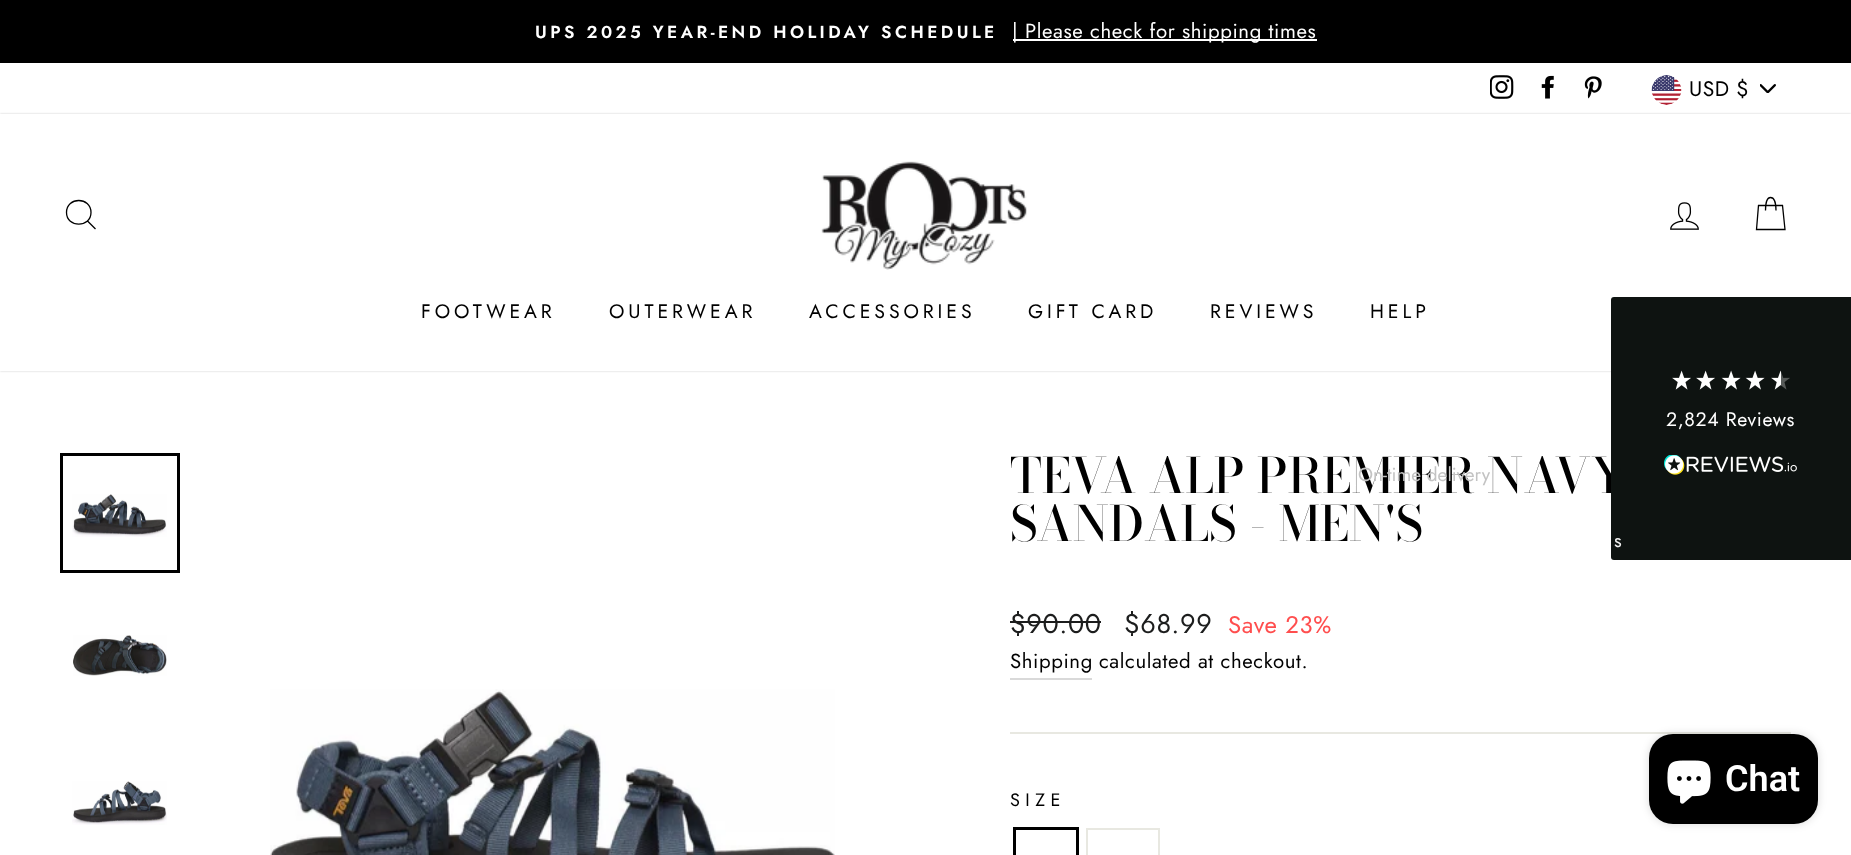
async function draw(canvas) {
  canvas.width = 1851;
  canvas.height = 855;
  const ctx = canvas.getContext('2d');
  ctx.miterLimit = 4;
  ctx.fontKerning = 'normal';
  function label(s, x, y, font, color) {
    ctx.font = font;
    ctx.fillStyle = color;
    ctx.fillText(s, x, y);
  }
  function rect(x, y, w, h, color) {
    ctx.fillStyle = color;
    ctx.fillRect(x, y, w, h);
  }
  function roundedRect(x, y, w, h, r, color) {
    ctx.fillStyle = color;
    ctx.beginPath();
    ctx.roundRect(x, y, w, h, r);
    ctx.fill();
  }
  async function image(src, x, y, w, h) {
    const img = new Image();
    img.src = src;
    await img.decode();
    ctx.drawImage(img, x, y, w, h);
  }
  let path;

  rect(0, 0, 1851, 855, '#fff');
  rect(0, 0, 1851, 63, '#000');
  ctx.letterSpacing = '3.45px';
  label('UPS 2025 YEAR-END HOLIDAY SCHEDULE', 535, 38, '600 17.35px Jost', '#fff');
  rect(1013, 39, 304, 2, '#fff');
  ctx.letterSpacing = '0.6px';
  label('| Please check for shipping times', 1012, 38, '20.4px Jost', '#fff');
  await image('assets/img1.png', 1490, 75, 24, 24);
  await image('assets/img2.png', 1541, 75, 13, 24);
  await image('assets/img3.png', 1584, 76, 18, 23);
  await image('assets/img4.png', 1760, 84, 16, 9);
  await image('assets/img5.png', 1651, 75, 31, 30);
  ctx.letterSpacing = '0.5px';
  label('USD $', 1689, 96, '21px Jost', '#000');
  ctx.fillStyle = '#00000033';
  ctx.filter = 'blur(1px)';
  ctx.beginPath();
  ctx.rect(0, 114, 1851, 257);
  ctx.fill();
  ctx.filter = 'none';
  rect(0, 114, 1851, 257, '#fff');
  path = new Path2D('M91 212.5C91 228 66.5 228 66.5 212.5C66.5 196.5 91 196.5 91 212.5ZM95.5 229L87.5 221');
  ctx.strokeStyle = '#000';
  ctx.lineWidth = 1.3;
  ctx.stroke(path);
  await image('assets/img6.png', 821, 161, 206, 109);
  await image('assets/img7.png', 1670, 202, 29, 28);
  path = new Path2D('M1765.5 210.5C1765.5 200 1767.5 197.5 1770.5 197.5C1773.5 197.5 1776 200 1776 210.5M1758.5 205.5H1782.5L1785 229.5H1756.5Z');
  ctx.stroke(path);
  ctx.letterSpacing = '3.9px';
  label('FOOTWEAR', 421, 318, '19.5px Jost', '#000');
  label('OUTERWEAR', 609, 318, '19.5px Jost', '#000');
  label('ACCESSORIES', 809, 318, '19.5px Jost', '#000');
  label('GIFT CARD', 1028, 318, '19.5px Jost', '#000');
  label('REVIEWS', 1210, 318, '19.5px Jost', '#000');
  label('HELP', 1370, 318, '19.5px Jost', '#000');
  ctx.lineWidth = 3;
  ctx.strokeRect(61.5, 454.5, 117, 117);
  await image('assets/img8.png', 72, 494, 95, 43);
  await image('assets/img9.png', 73, 635, 94, 41);
  await image('assets/img10.png', 72, 781, 95, 44);
  await image('assets/img11.png', 270, 689, 565, 166);
  ctx.letterSpacing = '0px';
  label('TEVA ALP PREMIER NAVY', 1010, 493, '500 48.5px Bodoni Moda', '#000');
  label('SANDALS - MEN\'S', 1010, 541, '500 48.5px Bodoni Moda', '#000');
  ctx.letterSpacing = '0.6px';
  label('$90.00', 1010, 633, '27px Jost', '#1c1d1d');
  rect(1010, 621, 91, 2, '#1c1d1d');
  label('$68.99', 1124, 633, '27px Jost', '#1c1d1d');
  label('Save 23%', 1228, 633, '24px Jost', '#ff4e4e');
  rect(1010, 678, 82, 2, '#d9d9d9');
  label('Shipping', 1010, 668, '20.4px Jost', '#000');
  label('calculated at checkout.', 1099, 668, '20.4px Jost', '#000');
  rect(1010, 732, 781, 2, '#e8e8e1');
  ctx.letterSpacing = '5.5px';
  label('SIZE', 1010, 806, '18px Jost', '#000');
  ctx.strokeRect(1014.5, 828.5, 63, 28);
  ctx.strokeStyle = '#e8e8e1';
  ctx.lineWidth = 2;
  ctx.strokeRect(1087, 829, 72, 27);
  ctx.fillStyle = '#0e1311';
  ctx.beginPath();
  ctx.roundRect(1611, 297, 240, 263, [3, 0, 0, 3]);
  ctx.fill();
  await image('assets/img12.png', 1672, 370, 19, 20);
  await image('assets/img12.png', 1696, 370, 19, 20);
  await image('assets/img13.png', 1721, 370, 20, 20);
  await image('assets/img13.png', 1745, 370, 20, 20);
  await image('assets/img14.png', 1771, 370, 19, 20);
  ctx.letterSpacing = '0.6px';
  label('2,824 Reviews', 1666, 426, '19.5px Jost', '#fff');
  await image('assets/img15.png', 1664, 455, 133, 20);
  ctx.letterSpacing = '0px';
  label('On-time delivery', 1358, 481, '19px Jost', '#c3c3c3');
  label('s', 1614, 547, '19px Jost', '#f3f3f3');
  ctx.fillStyle = '#00000026';
  ctx.filter = 'blur(4px)';
  ctx.beginPath();
  ctx.roundRect(1649, 734, 169, 90, 24);
  ctx.fill();
  ctx.filter = 'none';
  roundedRect(1649, 734, 169, 90, 24, '#000');
  await image('assets/img16.png', 1667, 760, 44, 44);
  label('Chat', 1725, 791, '600 36px Roboto', '#fff');
}

draw(document.querySelector('canvas'));
